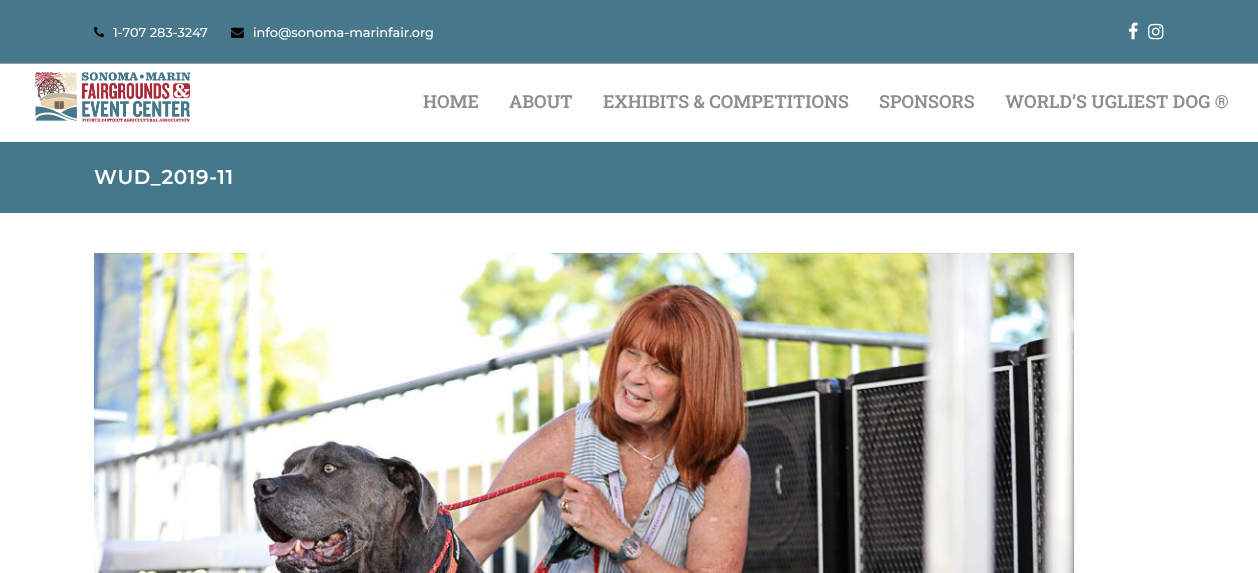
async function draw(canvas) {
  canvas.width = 1258;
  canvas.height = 573;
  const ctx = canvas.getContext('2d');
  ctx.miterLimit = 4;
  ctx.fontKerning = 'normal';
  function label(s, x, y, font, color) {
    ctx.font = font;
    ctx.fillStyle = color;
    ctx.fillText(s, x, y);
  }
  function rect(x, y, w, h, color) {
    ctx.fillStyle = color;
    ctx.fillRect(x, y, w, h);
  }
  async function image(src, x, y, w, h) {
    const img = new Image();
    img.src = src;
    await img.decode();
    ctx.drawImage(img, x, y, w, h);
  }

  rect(0, 0, 1258, 573, '#fff');
  rect(0, 0, 1258, 63, '#47778b');
  rect(0, 63, 1258, 1, '#999');
  await image('assets/img1.png', 94, 26, 11, 11);
  label('1-707 283-3247', 113, 37, '500 12.9px Montserrat', '#fff');
  await image('assets/img2.png', 231, 27, 13, 11);
  label('info@sonoma-marinfair.org', 253, 37, '500 12.9px Montserrat', '#fff');
  await image('assets/img3.png', 1128, 22, 10, 18);
  await image('assets/img4.png', 1148, 23, 16, 17);
  await image('assets/img5.png', 35, 72, 156, 50);
  label('HOME', 423, 108, '600 18px Roboto Slab', '#8e8e8e');
  label('ABOUT', 509, 108, '600 18px Roboto Slab', '#8e8e8e');
  label('EXHIBITS & COMPETITIONS', 603, 108, '600 18px Roboto Slab', '#8e8e8e');
  label('SPONSORS', 879, 108, '600 18px Roboto Slab', '#8e8e8e');
  label('WORLD’S UGLIEST DOG ®', 1005, 108, '600 18px Roboto Slab', '#8e8e8e');
  rect(0, 142, 1258, 71, '#45778b');
  rect(0, 141, 1258, 1, '#eee');
  ctx.letterSpacing = '0.6px';
  label('WUD_2019-11', 94, 184, '600 20px Montserrat', '#fff');
  await image('assets/img6.png', 94, 253, 980, 320);
}

draw(document.querySelector('canvas'));
